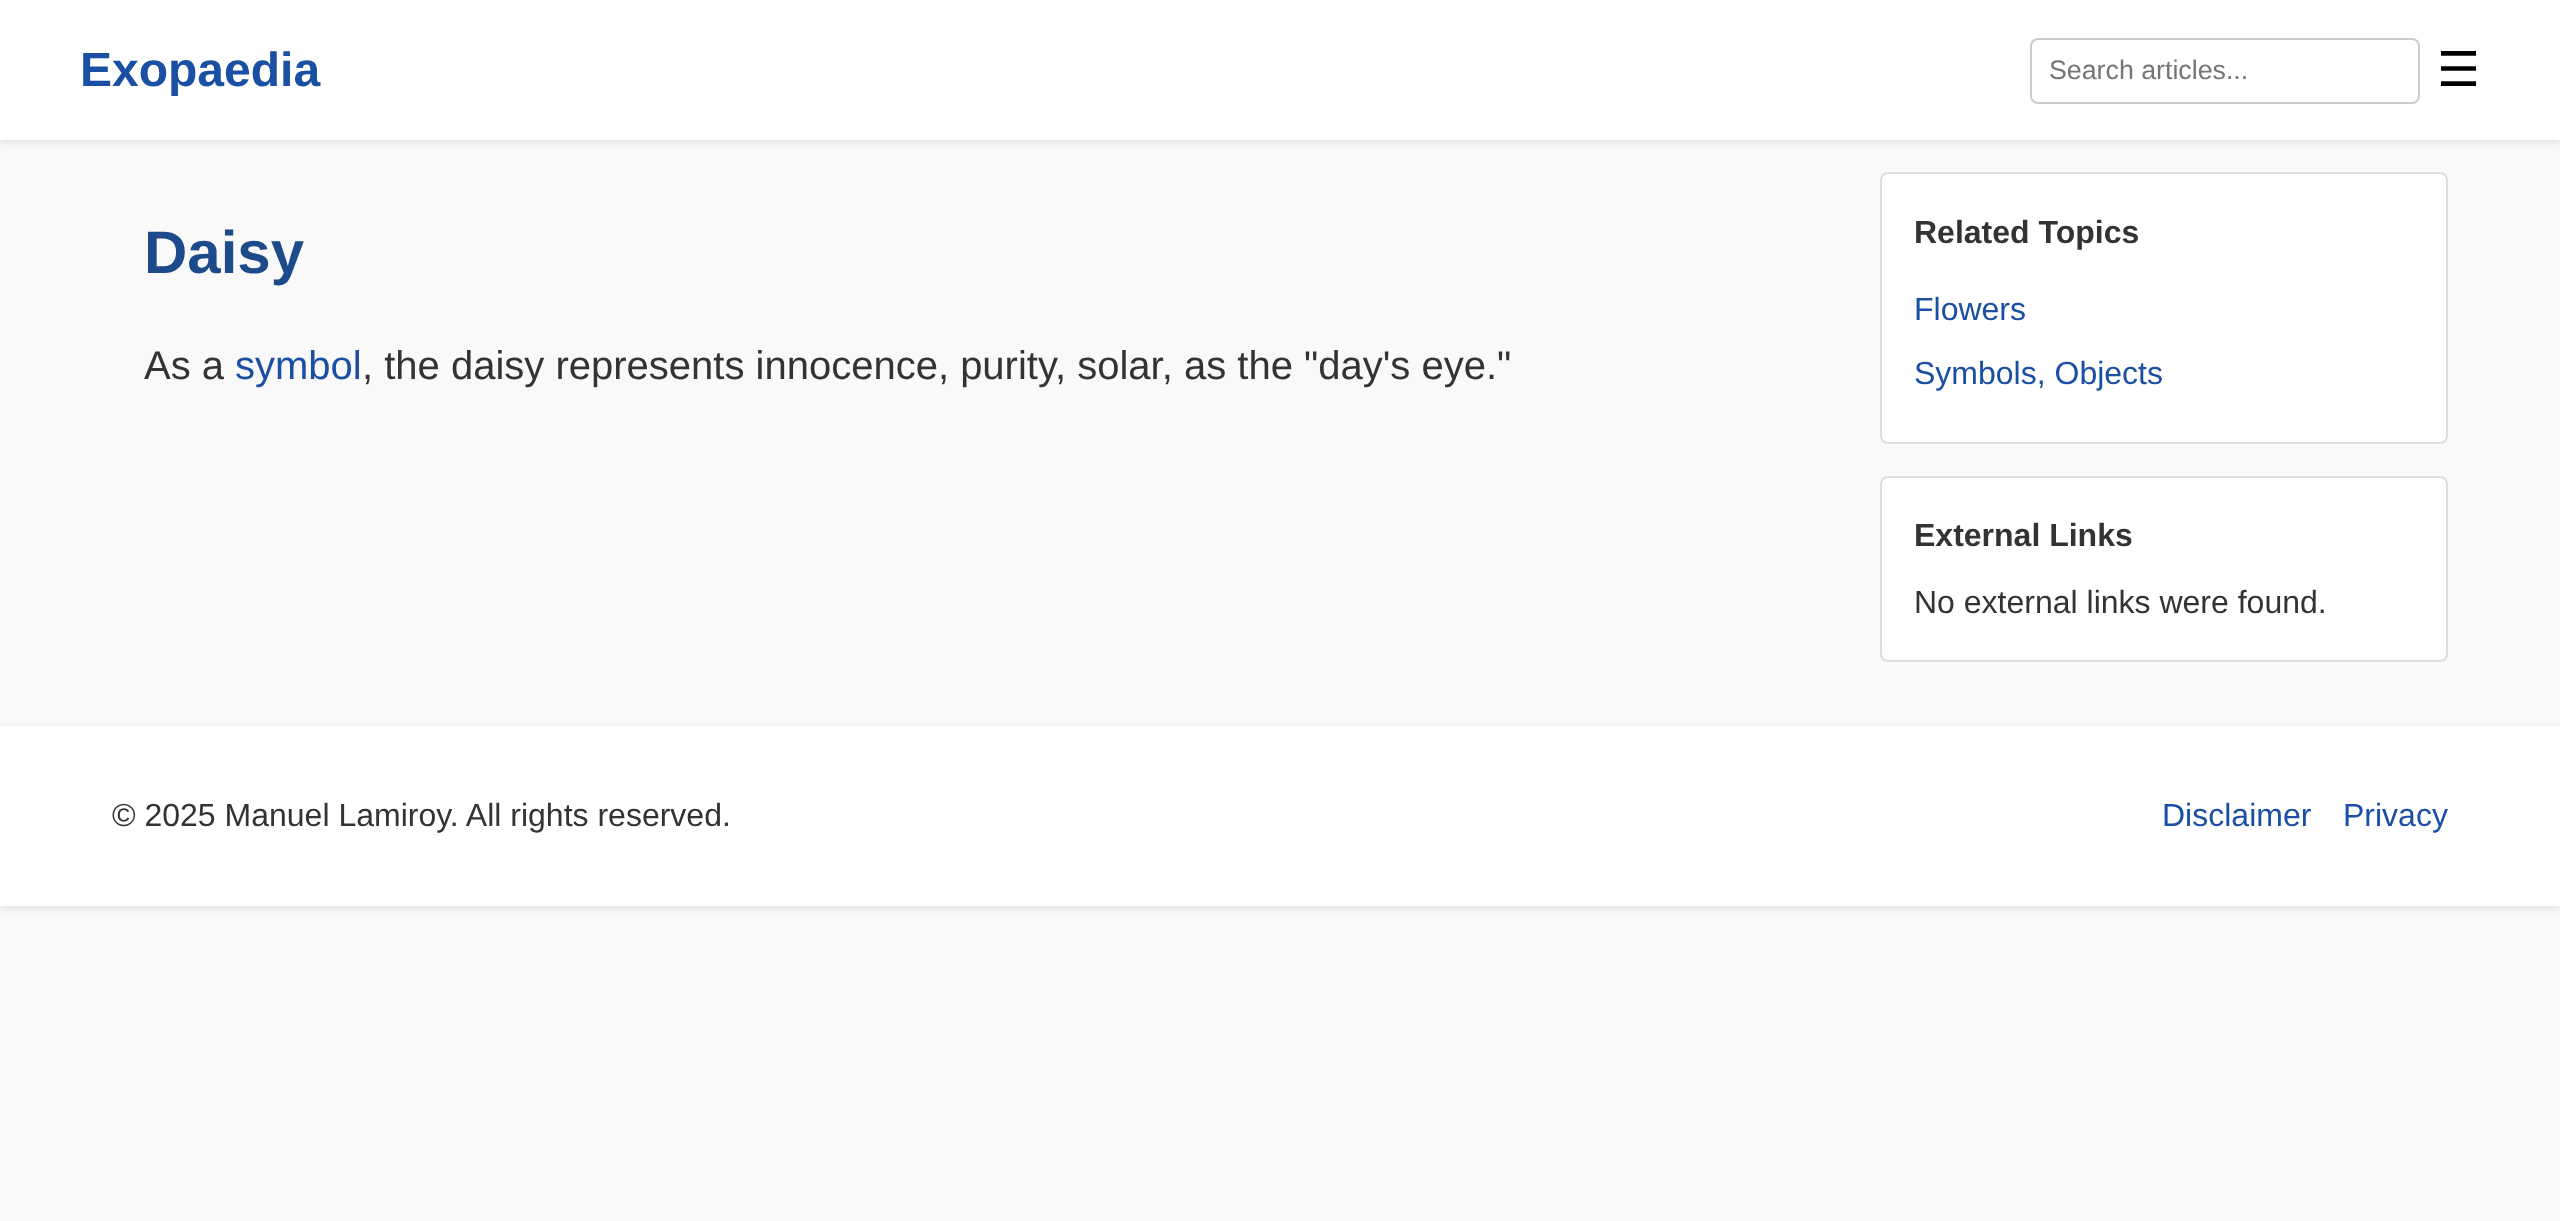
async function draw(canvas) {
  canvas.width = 2560;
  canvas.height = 1221;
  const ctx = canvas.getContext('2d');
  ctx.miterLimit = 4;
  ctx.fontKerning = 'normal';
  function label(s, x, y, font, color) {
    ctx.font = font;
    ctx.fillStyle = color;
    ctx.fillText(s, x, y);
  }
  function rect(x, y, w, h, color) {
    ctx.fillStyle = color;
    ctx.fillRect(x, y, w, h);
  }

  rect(0, 0, 2560, 1221, '#f9f9f9');
  ctx.fillStyle = '#0000001a';
  ctx.filter = 'blur(4px)';
  ctx.beginPath();
  ctx.rect(0, 2, 2560, 140);
  ctx.fill();
  ctx.filter = 'none';
  rect(0, 0, 2560, 140, '#fff');
  label('Exopaedia', 80, 86, 'bold 48px Liberation Sans', '#1a4fa3');
  ctx.beginPath();
  ctx.roundRect(2031, 39, 388, 64, 7);
  ctx.strokeStyle = '#ccc';
  ctx.lineWidth = 2;
  ctx.stroke();
  label('Search articles...', 2049, 79, '26.75px Liberation Sans', '#757575');
  label('☰', 2437, 86, '48px DejaVu Sans', '#000');
  label('Daisy', 144, 273, 'bold 60px Liberation Sans', '#1d4a8b');
  label('As a', 144, 379, '40px Liberation Sans', '#333');
  label('symbol', 235, 379, '40px Liberation Sans', '#1a4fa3');
  label(', the daisy represents innocence, purity, solar, as the "day\'s eye."', 362, 379, '40px Liberation Sans', '#333');
  ctx.fillStyle = '#fff';
  ctx.beginPath();
  ctx.roundRect(1881, 173, 566, 270, 7);
  ctx.fill();
  ctx.strokeStyle = '#ddd';
  ctx.stroke();
  label('Related Topics', 1914, 243, 'bold 32px Liberation Sans', '#333');
  label('Flowers', 1914, 320, '32px Liberation Sans', '#1a4fa3');
  label('Symbols, Objects', 1914, 384, '32px Liberation Sans', '#1a4fa3');
  ctx.fillStyle = '#fff';
  ctx.beginPath();
  ctx.roundRect(1881, 477, 566, 184, 7);
  ctx.fill();
  ctx.stroke();
  label('External Links', 1914, 546, 'bold 32px Liberation Sans', '#333');
  label('No external links were found.', 1914, 613, '32px Liberation Sans', '#333');
  ctx.fillStyle = '#0000001a';
  ctx.filter = 'blur(4px)';
  ctx.beginPath();
  ctx.rect(0, 728, 2560, 180);
  ctx.fill();
  ctx.filter = 'none';
  rect(0, 726, 2560, 180, '#fff');
  label('© 2025 Manuel Lamiroy. All rights reserved.', 112, 826, '32px Liberation Sans', '#333');
  label('Disclaimer', 2162, 826, '32px Liberation Sans', '#1a4fa3');
  label('Privacy', 2343, 826, '32px Liberation Sans', '#1a4fa3');
}

draw(document.querySelector('canvas'));
